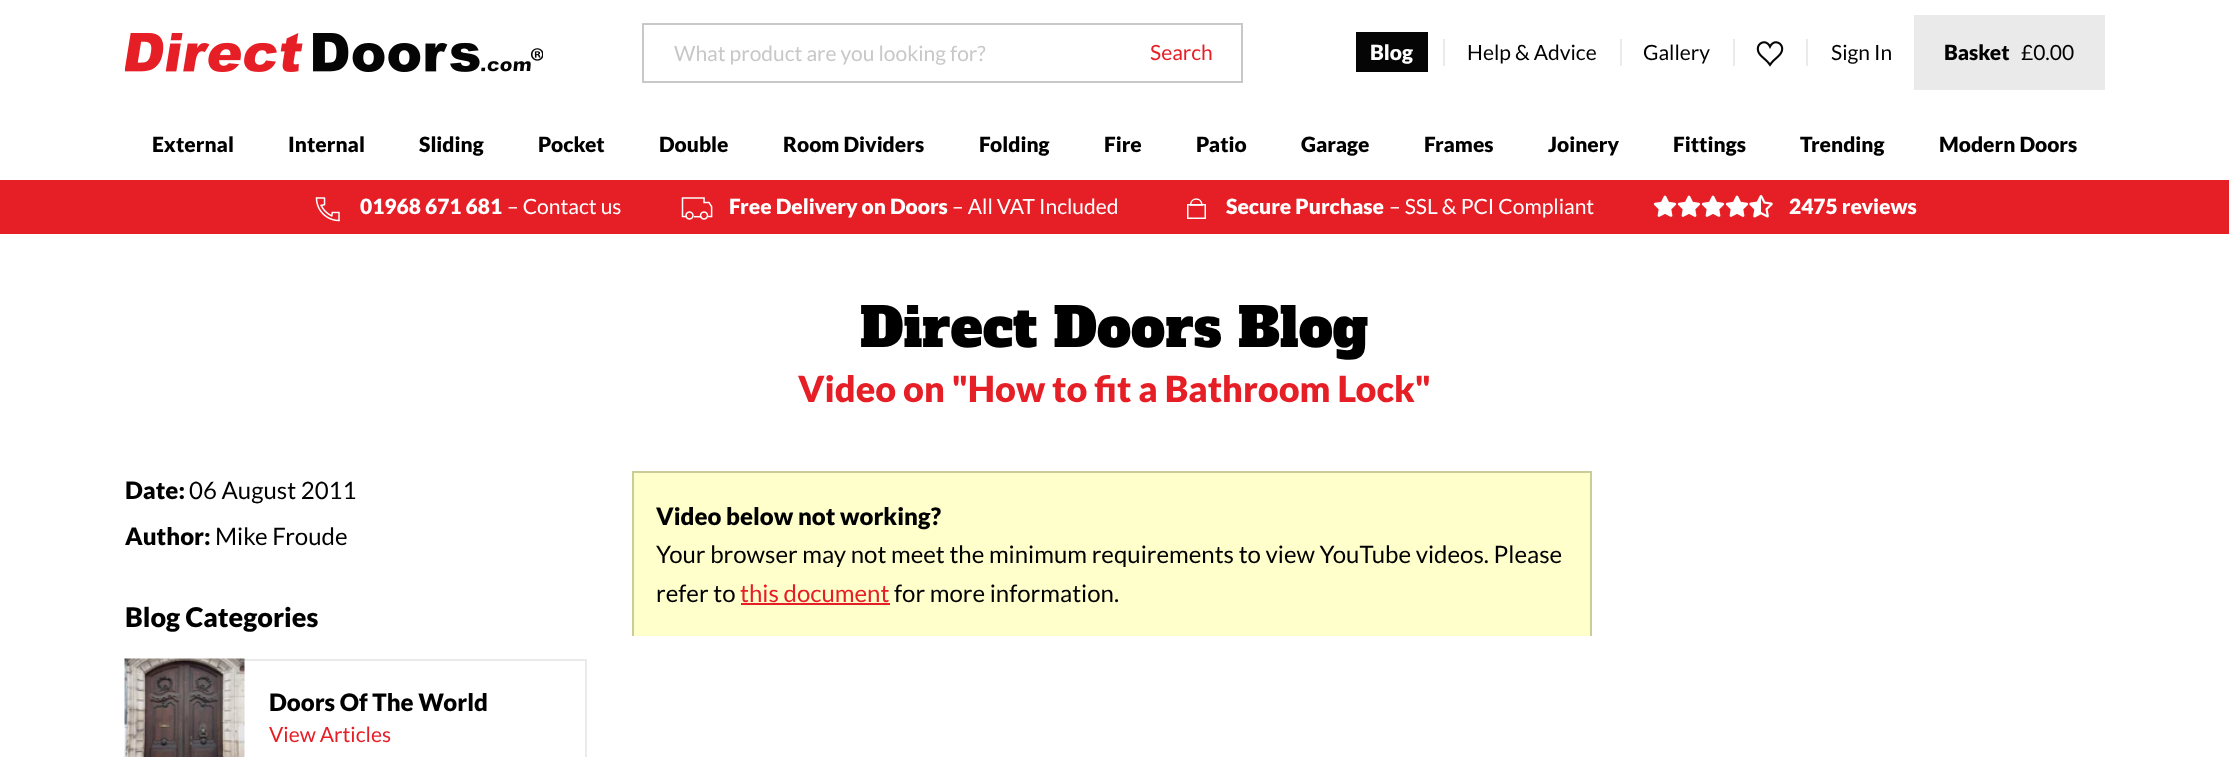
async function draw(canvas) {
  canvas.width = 2229;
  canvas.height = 757;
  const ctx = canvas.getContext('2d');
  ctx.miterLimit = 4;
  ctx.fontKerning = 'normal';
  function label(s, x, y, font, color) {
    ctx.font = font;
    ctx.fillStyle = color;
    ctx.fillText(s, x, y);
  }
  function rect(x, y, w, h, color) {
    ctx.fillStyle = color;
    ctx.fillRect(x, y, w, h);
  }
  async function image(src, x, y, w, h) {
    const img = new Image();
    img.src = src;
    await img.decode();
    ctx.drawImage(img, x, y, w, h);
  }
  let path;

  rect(0, 0, 2229, 757, '#fff');
  await image('assets/img1.png', 125, 33, 418, 39);
  rect(642, 23, 600, 2, '#c8c8c8');
  rect(642, 81, 480, 2, '#c8c8c8');
  rect(642, 23, 2, 60, '#c8c8c8');
  label('What product are you looking for?', 674, 61, '21px Lato', '#c8c8c8');
  rect(1241, 23, 2, 60, '#c8c8c8');
  rect(1122, 81, 120, 2, '#c8c8c8');
  label('Search', 1150, 60, '21px Lato', '#e61e26');
  rect(1364, 40, 56, 24, '#050505');
  label('Blog', 1370, 60, '900 21px Lato', '#fff');
  ctx.strokeStyle = '#050505';
  ctx.lineWidth = 8;
  ctx.strokeRect(1360, 36, 64, 32);
  rect(1443, 39, 2, 27, '#eaeaea');
  label('Help & Advice', 1467, 60, '21px Lato', '#000');
  rect(1620, 39, 2, 27, '#eaeaea');
  label('Gallery', 1643, 60, '21px Lato', '#000');
  rect(1733, 39, 2, 27, '#eaeaea');
  await image('assets/img2.png', 1756, 41, 28, 26);
  rect(1806, 39, 2, 27, '#eaeaea');
  label('Sign In', 1831, 60, '21px Lato', '#000');
  rect(1914, 15, 191, 75, '#eaeaea');
  label('Basket', 1944, 60, '900 21px Lato', '#000');
  label('£0.00', 2021, 60, '21px Lato', '#000');
  label('External', 152, 152, '900 21px Lato', '#000');
  label('Internal', 288, 152, '900 21px Lato', '#000');
  label('Sliding', 419, 152, '900 21px Lato', '#000');
  label('Pocket', 538, 152, '900 21px Lato', '#000');
  label('Double', 659, 152, '900 21px Lato', '#000');
  label('Room Dividers', 783, 152, '900 21px Lato', '#000');
  label('Folding', 979, 152, '900 21px Lato', '#000');
  label('Fire', 1104, 152, '900 21px Lato', '#000');
  label('Patio', 1196, 152, '900 21px Lato', '#000');
  label('Garage', 1301, 152, '900 21px Lato', '#000');
  label('Frames', 1424, 152, '900 21px Lato', '#000');
  label('Joinery', 1548, 152, '900 21px Lato', '#000');
  label('Fittings', 1673, 152, '900 21px Lato', '#000');
  label('Trending', 1800, 152, '900 21px Lato', '#000');
  label('Modern Doors', 1939, 152, '900 21px Lato', '#000');
  rect(0, 180, 2229, 54, '#e61e26');
  await image('assets/img3.png', 315, 197, 25, 25);
  label('01968 671 681', 360, 214, '900 21px Lato', '#fff');
  label('– Contact us', 507, 214, '21px Lato', '#fff');
  await image('assets/img4.png', 681, 197, 32, 23);
  label('Free Delivery on Doors', 729, 214, '900 21px Lato', '#fff');
  label('– All VAT Included', 952, 214, '21px Lato', '#fff');
  ctx.strokeStyle = '#fff';
  ctx.lineWidth = 1.5;
  ctx.strokeRect(1187.75, 204.75, 17.5, 13.5);
  path = new Path2D('M1202 205C1201.5 197 1191 197 1190.5 205Z');
  ctx.stroke(path);
  label('Secure Purchase', 1226, 214, '900 21px Lato', '#fff');
  label('– SSL & PCI Compliant', 1389, 214, '21px Lato', '#fff');
  await image('assets/img5.png', 1653, 195, 24, 22);
  await image('assets/img5.png', 1677, 195, 24, 22);
  await image('assets/img5.png', 1701, 195, 24, 22);
  await image('assets/img5.png', 1725, 195, 24, 22);
  await image('assets/img6.png', 1749, 195, 24, 23);
  label('2475 reviews', 1789, 214, '900 21px Lato', '#fff');
  label('Direct Doors Blog', 860, 347, '54px Alfa Slab One', '#000');
  label('Video on "How to fit a Bathroom Lock"', 798, 402, '900 36px Lato', '#e61e26');
  label('Date:', 125, 499, '900 24px Lato', '#000');
  label('06 August 2011', 189, 499, '24px Lato', '#000');
  label('Author:', 125, 545, '900 24px Lato', '#000');
  label('Mike Froude', 215, 545, '24px Lato', '#000');
  label('Blog Categories', 125, 627, '900 27px Lato', '#000');
  ctx.strokeStyle = '#eaeaea';
  ctx.lineWidth = 2;
  ctx.strokeRect(126, 660, 460, 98);
  await image('assets/img7.png', 124, 658, 121, 99);
  label('Doors Of The World', 269, 711, '900 24px Lato', '#000');
  label('View Articles', 269, 742, '21px Lato', '#e61e26');
  rect(634, 473, 956, 163, '#ffc');
  rect(632, 471, 960, 2, '#cc9');
  rect(1590, 471, 2, 165, '#cc9');
  rect(632, 471, 2, 165, '#cc9');
  label('Video below not working?', 656, 525, '900 24px Lato', '#000');
  label('Your browser may not meet the minimum requirements to view YouTube videos. Please', 656, 563, '24px Lato', '#000');
  label('refer to', 656, 602, '24px Lato', '#000');
  label('this document', 740, 602, '24px Lato', '#e61e26');
  rect(741, 603, 149, 2, '#e61e26');
  label('for more information.', 894, 602, '24px Lato', '#000');
}

draw(document.querySelector('canvas'));
